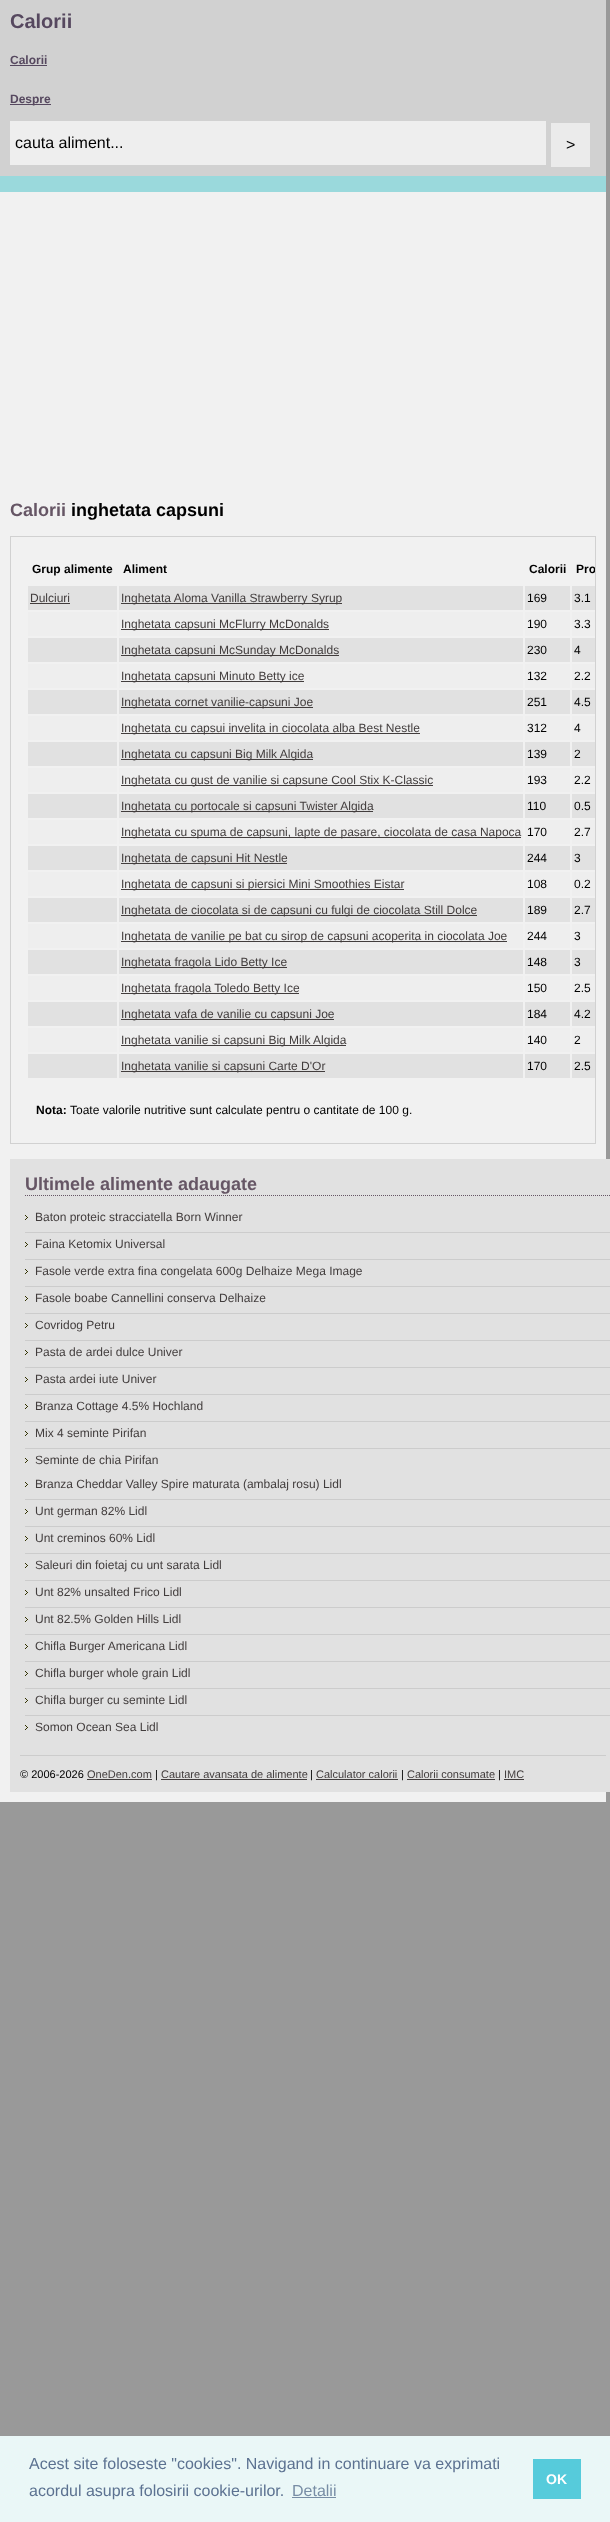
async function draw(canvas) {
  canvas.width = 610;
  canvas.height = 2522;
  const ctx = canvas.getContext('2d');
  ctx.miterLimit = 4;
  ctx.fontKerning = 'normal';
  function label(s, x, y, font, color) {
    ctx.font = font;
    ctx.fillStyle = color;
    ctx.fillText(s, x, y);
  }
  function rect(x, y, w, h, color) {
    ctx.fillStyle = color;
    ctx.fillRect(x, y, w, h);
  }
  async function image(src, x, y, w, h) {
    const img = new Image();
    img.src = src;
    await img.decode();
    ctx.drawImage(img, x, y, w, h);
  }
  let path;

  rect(0, 0, 610, 2522, '#999');
  rect(0, 192, 606, 1610, '#f1f1f1');
  rect(0, 0, 606, 176, '#d1d1d1');
  rect(0, 176, 606, 16, '#9ad9dc');
  label('Calorii', 10, 28, 'bold 20px Liberation Sans', '#56485f');
  label('Calorii', 10, 64, 'bold 12px Liberation Sans', '#56485f');
  rect(10, 65, 37, 1, '#56485f');
  rect(10, 104, 41, 1, '#56485f');
  label('Despre', 10, 103, 'bold 12px Liberation Sans', '#56485f');
  rect(10, 121, 536, 44, '#eee');
  label('cauta aliment...', 15, 148, '16px Liberation Sans', '#000');
  rect(551, 123, 39, 44, '#ebebeb');
  label('>', 566, 150, '16px Liberation Sans', '#000');
  label('Calorii', 10, 516, 'bold 18px Liberation Sans', '#665665');
  label('inghetata capsuni', 71, 516, 'bold 18px Liberation Sans', '#000');
  ctx.strokeStyle = '#d1d1d1';
  ctx.strokeRect(10.5, 536.5, 585, 607);
  label('Grup alimente', 32, 573, 'bold 12px Liberation Sans', '#000');
  label('Aliment', 123, 573, 'bold 12px Liberation Sans', '#000');
  label('Calorii', 529, 573, 'bold 12px Liberation Sans', '#000');
  ctx.save();
  ctx.beginPath();
  ctx.rect(11, 537, 584, 606);
  ctx.clip();
  label('Pro', 576, 573, 'bold 12px Liberation Sans', '#000');
  ctx.restore();
  rect(28, 586, 89, 24, '#e1e1e1');
  label('Dulciuri', 30, 602, '12px Liberation Sans', '#423d3d');
  rect(30, 603, 40, 1, '#423d3d');
  rect(119, 586, 404, 24, '#e1e1e1');
  rect(121, 603, 221, 1, '#423d3d');
  label('Inghetata Aloma Vanilla Strawberry Syrup', 121, 602, '12px Liberation Sans', '#423d3d');
  rect(525, 586, 45, 24, '#e1e1e1');
  label('169', 527, 602, '12px Liberation Sans', '#000');
  rect(572, 586, 23, 24, '#e1e1e1');
  label('3.1', 574, 602, '12px Liberation Sans', '#000');
  rect(28, 612, 89, 24, '#eee');
  rect(119, 612, 404, 24, '#eee');
  rect(121, 629, 208, 1, '#423d3d');
  label('Inghetata capsuni McFlurry McDonalds', 121, 628, '12px Liberation Sans', '#423d3d');
  rect(525, 612, 45, 24, '#eee');
  label('190', 527, 628, '12px Liberation Sans', '#000');
  rect(572, 612, 23, 24, '#eee');
  label('3.3', 574, 628, '12px Liberation Sans', '#000');
  rect(28, 638, 89, 24, '#e1e1e1');
  rect(119, 638, 404, 24, '#e1e1e1');
  rect(121, 655, 218, 1, '#423d3d');
  label('Inghetata capsuni McSunday McDonalds', 121, 654, '12px Liberation Sans', '#423d3d');
  rect(525, 638, 45, 24, '#e1e1e1');
  label('230', 527, 654, '12px Liberation Sans', '#000');
  rect(572, 638, 23, 24, '#e1e1e1');
  label('4', 574, 654, '12px Liberation Sans', '#000');
  rect(28, 664, 89, 24, '#eee');
  rect(119, 664, 404, 24, '#eee');
  rect(121, 681, 183, 1, '#423d3d');
  label('Inghetata capsuni Minuto Betty ice', 121, 680, '12px Liberation Sans', '#423d3d');
  rect(525, 664, 45, 24, '#eee');
  label('132', 527, 680, '12px Liberation Sans', '#000');
  rect(572, 664, 23, 24, '#eee');
  label('2.2', 574, 680, '12px Liberation Sans', '#000');
  rect(28, 690, 89, 24, '#e1e1e1');
  rect(119, 690, 404, 24, '#e1e1e1');
  rect(121, 707, 192, 1, '#423d3d');
  label('Inghetata cornet vanilie-capsuni Joe', 121, 706, '12px Liberation Sans', '#423d3d');
  rect(525, 690, 45, 24, '#e1e1e1');
  label('251', 527, 706, '12px Liberation Sans', '#000');
  rect(572, 690, 23, 24, '#e1e1e1');
  label('4.5', 574, 706, '12px Liberation Sans', '#000');
  rect(28, 716, 89, 24, '#eee');
  rect(119, 716, 404, 24, '#eee');
  rect(121, 733, 299, 1, '#423d3d');
  label('Inghetata cu capsui invelita in ciocolata alba Best Nestle', 121, 732, '12px Liberation Sans', '#423d3d');
  rect(525, 716, 45, 24, '#eee');
  label('312', 527, 732, '12px Liberation Sans', '#000');
  rect(572, 716, 23, 24, '#eee');
  label('4', 574, 732, '12px Liberation Sans', '#000');
  rect(28, 742, 89, 24, '#e1e1e1');
  rect(119, 742, 404, 24, '#e1e1e1');
  rect(121, 759, 192, 1, '#423d3d');
  label('Inghetata cu capsuni Big Milk Algida', 121, 758, '12px Liberation Sans', '#423d3d');
  rect(525, 742, 45, 24, '#e1e1e1');
  label('139', 527, 758, '12px Liberation Sans', '#000');
  rect(572, 742, 23, 24, '#e1e1e1');
  label('2', 574, 758, '12px Liberation Sans', '#000');
  rect(28, 768, 89, 24, '#eee');
  rect(119, 768, 404, 24, '#eee');
  rect(121, 785, 312, 1, '#423d3d');
  label('Inghetata cu gust de vanilie si capsune Cool Stix K-Classic', 121, 784, '12px Liberation Sans', '#423d3d');
  rect(525, 768, 45, 24, '#eee');
  label('193', 527, 784, '12px Liberation Sans', '#000');
  rect(572, 768, 23, 24, '#eee');
  label('2.2', 574, 784, '12px Liberation Sans', '#000');
  rect(28, 794, 89, 24, '#e1e1e1');
  rect(119, 794, 404, 24, '#e1e1e1');
  rect(121, 811, 252, 1, '#423d3d');
  label('Inghetata cu portocale si capsuni Twister Algida', 121, 810, '12px Liberation Sans', '#423d3d');
  rect(525, 794, 45, 24, '#e1e1e1');
  label('110', 527, 810, '12px Liberation Sans', '#000');
  rect(572, 794, 23, 24, '#e1e1e1');
  label('0.5', 574, 810, '12px Liberation Sans', '#000');
  rect(28, 820, 89, 24, '#eee');
  rect(119, 820, 404, 24, '#eee');
  rect(121, 837, 400, 1, '#423d3d');
  label('Inghetata cu spuma de capsuni, lapte de pasare, ciocolata de casa Napoca', 121, 836, '12px Liberation Sans', '#423d3d');
  rect(525, 820, 45, 24, '#eee');
  label('170', 527, 836, '12px Liberation Sans', '#000');
  rect(572, 820, 23, 24, '#eee');
  label('2.7', 574, 836, '12px Liberation Sans', '#000');
  rect(28, 846, 89, 24, '#e1e1e1');
  rect(119, 846, 404, 24, '#e1e1e1');
  rect(121, 863, 166, 1, '#423d3d');
  label('Inghetata de capsuni Hit Nestle', 121, 862, '12px Liberation Sans', '#423d3d');
  rect(525, 846, 45, 24, '#e1e1e1');
  label('244', 527, 862, '12px Liberation Sans', '#000');
  rect(572, 846, 23, 24, '#e1e1e1');
  label('3', 574, 862, '12px Liberation Sans', '#000');
  rect(28, 872, 89, 24, '#eee');
  rect(119, 872, 404, 24, '#eee');
  rect(121, 889, 283, 1, '#423d3d');
  label('Inghetata de capsuni si piersici Mini Smoothies Eistar', 121, 888, '12px Liberation Sans', '#423d3d');
  rect(525, 872, 45, 24, '#eee');
  label('108', 527, 888, '12px Liberation Sans', '#000');
  rect(572, 872, 23, 24, '#eee');
  label('0.2', 574, 888, '12px Liberation Sans', '#000');
  rect(28, 898, 89, 24, '#e1e1e1');
  rect(119, 898, 404, 24, '#e1e1e1');
  rect(121, 915, 356, 1, '#423d3d');
  label('Inghetata de ciocolata si de capsuni cu fulgi de ciocolata Still Dolce', 121, 914, '12px Liberation Sans', '#423d3d');
  rect(525, 898, 45, 24, '#e1e1e1');
  label('189', 527, 914, '12px Liberation Sans', '#000');
  rect(572, 898, 23, 24, '#e1e1e1');
  label('2.7', 574, 914, '12px Liberation Sans', '#000');
  rect(28, 924, 89, 24, '#eee');
  rect(119, 924, 404, 24, '#eee');
  rect(121, 941, 386, 1, '#423d3d');
  label('Inghetata de vanilie pe bat cu sirop de capsuni acoperita in ciocolata Joe', 121, 940, '12px Liberation Sans', '#423d3d');
  rect(525, 924, 45, 24, '#eee');
  label('244', 527, 940, '12px Liberation Sans', '#000');
  rect(572, 924, 23, 24, '#eee');
  label('3', 574, 940, '12px Liberation Sans', '#000');
  rect(28, 950, 89, 24, '#e1e1e1');
  rect(119, 950, 404, 24, '#e1e1e1');
  rect(121, 967, 166, 1, '#423d3d');
  label('Inghetata fragola Lido Betty Ice', 121, 966, '12px Liberation Sans', '#423d3d');
  rect(525, 950, 45, 24, '#e1e1e1');
  label('148', 527, 966, '12px Liberation Sans', '#000');
  rect(572, 950, 23, 24, '#e1e1e1');
  label('3', 574, 966, '12px Liberation Sans', '#000');
  rect(28, 976, 89, 24, '#eee');
  rect(119, 976, 404, 24, '#eee');
  rect(121, 993, 178, 1, '#423d3d');
  label('Inghetata fragola Toledo Betty Ice', 121, 992, '12px Liberation Sans', '#423d3d');
  rect(525, 976, 45, 24, '#eee');
  label('150', 527, 992, '12px Liberation Sans', '#000');
  rect(572, 976, 23, 24, '#eee');
  label('2.5', 574, 992, '12px Liberation Sans', '#000');
  rect(28, 1002, 89, 24, '#e1e1e1');
  rect(119, 1002, 404, 24, '#e1e1e1');
  rect(121, 1019, 213, 1, '#423d3d');
  label('Inghetata vafa de vanilie cu capsuni Joe', 121, 1018, '12px Liberation Sans', '#423d3d');
  rect(525, 1002, 45, 24, '#e1e1e1');
  label('184', 527, 1018, '12px Liberation Sans', '#000');
  rect(572, 1002, 23, 24, '#e1e1e1');
  label('4.2', 574, 1018, '12px Liberation Sans', '#000');
  rect(28, 1028, 89, 24, '#eee');
  rect(119, 1028, 404, 24, '#eee');
  rect(121, 1045, 225, 1, '#423d3d');
  label('Inghetata vanilie si capsuni Big Milk Algida', 121, 1044, '12px Liberation Sans', '#423d3d');
  rect(525, 1028, 45, 24, '#eee');
  label('140', 527, 1044, '12px Liberation Sans', '#000');
  rect(572, 1028, 23, 24, '#eee');
  label('2', 574, 1044, '12px Liberation Sans', '#000');
  rect(28, 1054, 89, 24, '#e1e1e1');
  rect(119, 1054, 404, 24, '#e1e1e1');
  rect(121, 1071, 204, 1, '#423d3d');
  label('Inghetata vanilie si capsuni Carte D\'Or', 121, 1070, '12px Liberation Sans', '#423d3d');
  rect(525, 1054, 45, 24, '#e1e1e1');
  label('170', 527, 1070, '12px Liberation Sans', '#000');
  rect(572, 1054, 23, 24, '#e1e1e1');
  label('2.5', 574, 1070, '12px Liberation Sans', '#000');
  label('Nota:', 36, 1114, 'bold 12px Liberation Sans', '#000');
  label('Toate valorile nutritive sunt calculate pentru o cantitate de 100 g.', 70, 1114, '12px Liberation Sans', '#000');
  rect(10, 1159, 600, 633, '#e1e1e1');
  path = new Path2D('M25 1195.5H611');
  ctx.strokeStyle = '#665665';
  ctx.setLineDash([1, 1]);
  ctx.stroke(path);
  label('Ultimele alimente adaugate', 25, 1190, 'bold 18px Liberation Sans', '#665665');
  await image('assets/img1.png', 25, 1215, 3, 5);
  rect(25, 1232, 585, 1, '#ccc');
  label('Baton proteic stracciatella Born Winner', 35, 1221, '12px Liberation Sans', '#423d3d');
  await image('assets/img1.png', 25, 1242, 3, 5);
  rect(25, 1259, 585, 1, '#ccc');
  label('Faina Ketomix Universal', 35, 1248, '12px Liberation Sans', '#423d3d');
  await image('assets/img1.png', 25, 1269, 3, 5);
  rect(25, 1286, 585, 1, '#ccc');
  label('Fasole verde extra fina congelata 600g Delhaize Mega Image', 35, 1275, '12px Liberation Sans', '#423d3d');
  await image('assets/img1.png', 25, 1296, 3, 5);
  rect(25, 1313, 585, 1, '#ccc');
  label('Fasole boabe Cannellini conserva Delhaize', 35, 1302, '12px Liberation Sans', '#423d3d');
  await image('assets/img1.png', 25, 1323, 3, 5);
  rect(25, 1340, 585, 1, '#ccc');
  label('Covridog Petru', 35, 1329, '12px Liberation Sans', '#423d3d');
  await image('assets/img1.png', 25, 1350, 3, 5);
  rect(25, 1367, 585, 1, '#ccc');
  label('Pasta de ardei dulce Univer', 35, 1356, '12px Liberation Sans', '#423d3d');
  await image('assets/img1.png', 25, 1377, 3, 5);
  rect(25, 1394, 585, 1, '#ccc');
  label('Pasta ardei iute Univer', 35, 1383, '12px Liberation Sans', '#423d3d');
  await image('assets/img1.png', 25, 1404, 3, 5);
  rect(25, 1421, 585, 1, '#ccc');
  label('Branza Cottage 4.5% Hochland', 35, 1410, '12px Liberation Sans', '#423d3d');
  await image('assets/img1.png', 25, 1431, 3, 5);
  rect(25, 1448, 585, 1, '#ccc');
  label('Mix 4 seminte Pirifan', 35, 1437, '12px Liberation Sans', '#423d3d');
  await image('assets/img1.png', 25, 1458, 3, 5);
  label('Seminte de chia Pirifan', 35, 1464, '12px Liberation Sans', '#423d3d');
  await image('assets/img1.png', 25, 1482, 3, 5);
  rect(25, 1499, 585, 1, '#ccc');
  label('Branza Cheddar Valley Spire maturata (ambalaj rosu) Lidl', 35, 1488, '12px Liberation Sans', '#423d3d');
  await image('assets/img1.png', 25, 1509, 3, 5);
  rect(25, 1526, 585, 1, '#ccc');
  label('Unt german 82% Lidl', 35, 1515, '12px Liberation Sans', '#423d3d');
  await image('assets/img1.png', 25, 1536, 3, 5);
  rect(25, 1553, 585, 1, '#ccc');
  label('Unt creminos 60% Lidl', 35, 1542, '12px Liberation Sans', '#423d3d');
  await image('assets/img1.png', 25, 1563, 3, 5);
  rect(25, 1580, 585, 1, '#ccc');
  label('Saleuri din foietaj cu unt sarata Lidl', 35, 1569, '12px Liberation Sans', '#423d3d');
  await image('assets/img1.png', 25, 1590, 3, 5);
  rect(25, 1607, 585, 1, '#ccc');
  label('Unt 82% unsalted Frico Lidl', 35, 1596, '12px Liberation Sans', '#423d3d');
  await image('assets/img1.png', 25, 1617, 3, 5);
  rect(25, 1634, 585, 1, '#ccc');
  label('Unt 82.5% Golden Hills Lidl', 35, 1623, '12px Liberation Sans', '#423d3d');
  await image('assets/img1.png', 25, 1644, 3, 5);
  rect(25, 1661, 585, 1, '#ccc');
  label('Chifla Burger Americana Lidl', 35, 1650, '12px Liberation Sans', '#423d3d');
  await image('assets/img1.png', 25, 1671, 3, 5);
  rect(25, 1688, 585, 1, '#ccc');
  label('Chifla burger whole grain Lidl', 35, 1677, '12px Liberation Sans', '#423d3d');
  await image('assets/img1.png', 25, 1698, 3, 5);
  rect(25, 1715, 585, 1, '#ccc');
  label('Chifla burger cu seminte Lidl', 35, 1704, '12px Liberation Sans', '#423d3d');
  await image('assets/img1.png', 25, 1725, 3, 5);
  label('Somon Ocean Sea Lidl', 35, 1731, '12px Liberation Sans', '#423d3d');
  rect(20, 1755, 586, 1, '#ccc');
  label('© 2006-2026', 20, 1778, '11px Liberation Sans', '#000');
  label('OneDen.com', 87, 1778, '11px Liberation Sans', '#423d3d');
  rect(87, 1779, 65, 1, '#423d3d');
  label('|', 155, 1778, '11px Liberation Sans', '#000');
  label('Cautare avansata de alimente', 161, 1778, '11px Liberation Sans', '#423d3d');
  rect(161, 1779, 146, 1, '#423d3d');
  label('|', 310, 1778, '11px Liberation Sans', '#000');
  label('Calculator calorii', 316, 1778, '11px Liberation Sans', '#423d3d');
  rect(316, 1779, 82, 1, '#423d3d');
  label('|', 401, 1778, '11px Liberation Sans', '#000');
  label('Calorii consumate', 407, 1778, '11px Liberation Sans', '#423d3d');
  rect(407, 1779, 88, 1, '#423d3d');
  label('|', 498, 1778, '11px Liberation Sans', '#000');
  label('IMC', 504, 1778, '11px Liberation Sans', '#423d3d');
  rect(504, 1779, 20, 1, '#423d3d');
  rect(0, 2436, 610, 86, '#eaf7f7');
  label('Acest site foloseste "cookies". Navigand in continuare va exprimati', 29, 2469, '16px Liberation Sans', '#5c7291');
  label('acordul asupra folosirii cookie-urilor.', 29, 2496, '16px Liberation Sans', '#5c7291');
  label('Detalii', 292, 2496, '16px Liberation Sans', '#788da5');
  rect(292, 2497, 44, 1, '#788da5');
  rect(533, 2459, 48, 40, '#56cbdb');
  label('OK', 546, 2484, 'bold 14px Liberation Sans', '#fff');
}

draw(document.querySelector('canvas'));
